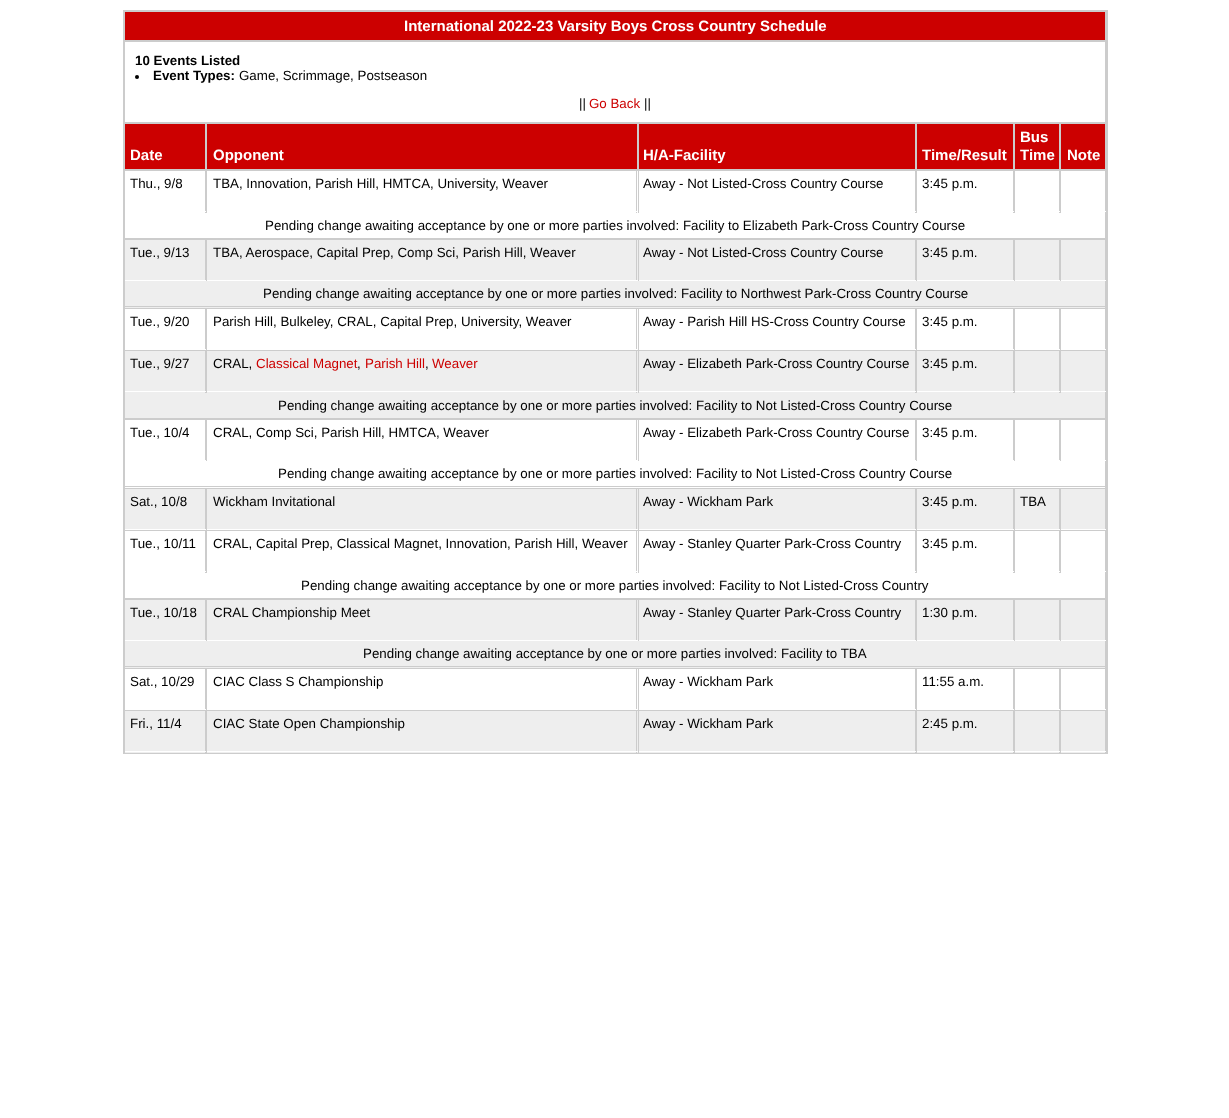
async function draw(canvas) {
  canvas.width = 1229;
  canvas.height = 1118;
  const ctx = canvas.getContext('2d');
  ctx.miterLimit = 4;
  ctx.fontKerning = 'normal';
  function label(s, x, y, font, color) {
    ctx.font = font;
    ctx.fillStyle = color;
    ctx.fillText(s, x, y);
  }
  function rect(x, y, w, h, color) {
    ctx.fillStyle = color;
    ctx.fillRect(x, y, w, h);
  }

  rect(0, 0, 1229, 1118, '#fff');
  rect(123, 10, 985, 744, '#ccc');
  rect(125, 12, 980, 28, '#c00');
  label('International 2022-23 Varsity Boys Cross Country Schedule', 404, 31, 'bold 15px Liberation Sans', '#fff');
  rect(125, 42, 980, 80, '#fff');
  label('10 Events Listed', 135, 65, 'bold 13.33px Liberation Sans', '#000');
  ctx.beginPath();
  ctx.arc(137, 77, 2, 0, 2 * Math.PI);
  ctx.fill();
  label('Event Types:', 153, 80, 'bold 13.33px Liberation Sans', '#000');
  label('Game, Scrimmage, Postseason', 239, 80, '13.33px Liberation Sans', '#000');
  label('||', 579, 108, '13.33px Liberation Sans', '#000');
  label('Go Back', 589, 108, '13.33px Liberation Sans', '#c00');
  label('||', 644, 108, '13.33px Liberation Sans', '#000');
  rect(125, 124, 80, 45, '#c00');
  label('Date', 130, 160, 'bold 15px Liberation Sans', '#fff');
  rect(207, 124, 430, 45, '#c00');
  label('Opponent', 213, 160, 'bold 15px Liberation Sans', '#fff');
  rect(639, 124, 276, 45, '#c00');
  label('H/A-Facility', 643, 160, 'bold 15px Liberation Sans', '#fff');
  rect(917, 124, 96, 45, '#c00');
  label('Time/Result', 922, 160, 'bold 15px Liberation Sans', '#fff');
  rect(1015, 124, 44, 45, '#c00');
  label('Bus', 1020, 142, 'bold 15px Liberation Sans', '#fff');
  label('Time', 1020, 160, 'bold 15px Liberation Sans', '#fff');
  rect(1061, 124, 44, 45, '#c00');
  label('Note', 1067, 160, 'bold 15px Liberation Sans', '#fff');
  rect(125, 171, 980, 67, '#fff');
  rect(205, 170, 2, 43, '#ccc');
  rect(124, 211, 82, 1, '#fff');
  rect(124, 211, 1, 2, '#ccc');
  label('Thu., 9/8', 130, 188, '13.33px Liberation Sans', '#000');
  rect(636, 170, 1, 43, '#ccc');
  rect(636, 211, 2, 1, '#fff');
  label('TBA, Innovation, Parish Hill, HMTCA, University, Weaver', 213, 188, '13.33px Liberation Sans', '#000');
  rect(915, 170, 2, 43, '#ccc');
  rect(915, 211, 1, 1, '#fff');
  rect(638, 170, 1, 43, '#ccc');
  label('Away - Not Listed-Cross Country Course', 643, 188, '13.33px Liberation Sans', '#000');
  rect(1013, 170, 2, 43, '#ccc');
  rect(1013, 211, 1, 1, '#fff');
  label('3:45 p.m.', 922, 188, '13.33px Liberation Sans', '#000');
  rect(1059, 170, 2, 43, '#ccc');
  rect(1059, 211, 1, 1, '#fff');
  rect(1105, 211, 1, 1, '#fff');
  label('Pending change awaiting acceptance by one or more parties involved: Facility to Elizabeth Park-Cross Country Course', 265, 230, '13.33px Liberation Sans', '#000');
  rect(125, 240, 980, 40, '#eee');
  rect(1059, 239, 1, 42, '#ccc');
  rect(1014, 280, 92, 1, '#fff');
  rect(1014, 239, 1, 42, '#ccc');
  rect(205, 239, 1, 42, '#ccc');
  rect(124, 280, 82, 1, '#fff');
  rect(124, 280, 1, 1, '#ccc');
  label('Tue., 9/13', 130, 257, '13.33px Liberation Sans', '#000');
  rect(636, 239, 1, 42, '#ccc');
  rect(206, 280, 432, 1, '#fff');
  rect(206, 239, 1, 42, '#ccc');
  label('TBA, Aerospace, Capital Prep, Comp Sci, Parish Hill, Weaver', 213, 257, '13.33px Liberation Sans', '#000');
  rect(915, 239, 1, 42, '#ccc');
  rect(638, 280, 278, 1, '#fff');
  rect(638, 239, 1, 42, '#ccc');
  label('Away - Not Listed-Cross Country Course', 643, 257, '13.33px Liberation Sans', '#000');
  rect(1013, 239, 1, 42, '#ccc');
  rect(916, 280, 98, 1, '#fff');
  rect(916, 239, 1, 42, '#ccc');
  label('3:45 p.m.', 922, 257, '13.33px Liberation Sans', '#000');
  rect(1060, 239, 1, 42, '#ccc');
  rect(125, 281, 980, 27, '#eee');
  rect(124, 306, 982, 1, '#ccc');
  label('Pending change awaiting acceptance by one or more parties involved: Facility to Northwest Park-Cross Country Course', 263, 298, '13.33px Liberation Sans', '#000');
  rect(125, 309, 980, 40, '#fff');
  rect(1059, 308, 1, 42, '#ccc');
  rect(1014, 349, 92, 1, '#fff');
  rect(1014, 308, 1, 42, '#ccc');
  rect(205, 308, 1, 42, '#ccc');
  rect(124, 349, 82, 1, '#fff');
  rect(124, 349, 1, 1, '#ccc');
  label('Tue., 9/20', 130, 326, '13.33px Liberation Sans', '#000');
  rect(636, 308, 1, 42, '#ccc');
  rect(206, 349, 432, 1, '#fff');
  rect(206, 308, 1, 42, '#ccc');
  label('Parish Hill, Bulkeley, CRAL, Capital Prep, University, Weaver', 213, 326, '13.33px Liberation Sans', '#000');
  rect(915, 308, 1, 42, '#ccc');
  rect(638, 349, 278, 1, '#fff');
  rect(638, 308, 1, 42, '#ccc');
  label('Away - Parish Hill HS-Cross Country Course', 643, 326, '13.33px Liberation Sans', '#000');
  rect(1013, 308, 1, 42, '#ccc');
  rect(916, 349, 98, 1, '#fff');
  rect(916, 308, 1, 42, '#ccc');
  label('3:45 p.m.', 922, 326, '13.33px Liberation Sans', '#000');
  rect(1060, 308, 1, 42, '#ccc');
  rect(125, 351, 980, 67, '#eee');
  rect(1059, 350, 1, 43, '#ccc');
  rect(1014, 391, 92, 1, '#fff');
  rect(1014, 350, 1, 43, '#ccc');
  rect(205, 350, 1, 43, '#ccc');
  rect(124, 391, 82, 1, '#fff');
  rect(124, 391, 1, 2, '#ccc');
  label('Tue., 9/27', 130, 368, '13.33px Liberation Sans', '#000');
  rect(636, 350, 1, 43, '#ccc');
  rect(206, 391, 432, 1, '#fff');
  rect(206, 350, 1, 43, '#ccc');
  label('CRAL,', 213, 368, '13.33px Liberation Sans', '#000');
  label('Classical Magnet', 256, 368, '13.33px Liberation Sans', '#c00');
  label(',', 357, 368, '13.33px Liberation Sans', '#000');
  label('Parish Hill', 365, 368, '13.33px Liberation Sans', '#c00');
  label(',', 425, 368, '13.33px Liberation Sans', '#000');
  label('Weaver', 432, 368, '13.33px Liberation Sans', '#c00');
  rect(915, 350, 1, 43, '#ccc');
  rect(638, 391, 278, 1, '#fff');
  rect(638, 350, 1, 43, '#ccc');
  label('Away - Elizabeth Park-Cross Country Course', 643, 368, '13.33px Liberation Sans', '#000');
  rect(1013, 350, 1, 43, '#ccc');
  rect(916, 391, 98, 1, '#fff');
  rect(916, 350, 1, 43, '#ccc');
  label('3:45 p.m.', 922, 368, '13.33px Liberation Sans', '#000');
  rect(1060, 350, 1, 43, '#ccc');
  label('Pending change awaiting acceptance by one or more parties involved: Facility to Not Listed-Cross Country Course', 278, 410, '13.33px Liberation Sans', '#000');
  rect(125, 420, 980, 40, '#fff');
  rect(1059, 419, 1, 42, '#ccc');
  rect(1014, 460, 92, 1, '#fff');
  rect(1014, 419, 1, 42, '#ccc');
  rect(205, 419, 1, 42, '#ccc');
  rect(124, 460, 82, 1, '#fff');
  rect(124, 460, 1, 1, '#ccc');
  label('Tue., 10/4', 130, 437, '13.33px Liberation Sans', '#000');
  rect(636, 419, 1, 42, '#ccc');
  rect(206, 460, 432, 1, '#fff');
  rect(206, 419, 1, 42, '#ccc');
  label('CRAL, Comp Sci, Parish Hill, HMTCA, Weaver', 213, 437, '13.33px Liberation Sans', '#000');
  rect(915, 419, 1, 42, '#ccc');
  rect(638, 460, 278, 1, '#fff');
  rect(638, 419, 1, 42, '#ccc');
  label('Away - Elizabeth Park-Cross Country Course', 643, 437, '13.33px Liberation Sans', '#000');
  rect(1013, 419, 1, 42, '#ccc');
  rect(916, 460, 98, 1, '#fff');
  rect(916, 419, 1, 42, '#ccc');
  label('3:45 p.m.', 922, 437, '13.33px Liberation Sans', '#000');
  rect(1060, 419, 1, 42, '#ccc');
  rect(125, 461, 980, 27, '#fff');
  rect(124, 486, 982, 1, '#ccc');
  label('Pending change awaiting acceptance by one or more parties involved: Facility to Not Listed-Cross Country Course', 278, 478, '13.33px Liberation Sans', '#000');
  rect(125, 489, 980, 40, '#eee');
  rect(205, 488, 1, 42, '#ccc');
  rect(124, 529, 82, 1, '#fff');
  rect(124, 529, 1, 1, '#ccc');
  label('Sat., 10/8', 130, 506, '13.33px Liberation Sans', '#000');
  rect(636, 488, 1, 42, '#ccc');
  rect(206, 529, 432, 1, '#fff');
  rect(206, 488, 1, 42, '#ccc');
  label('Wickham Invitational', 213, 506, '13.33px Liberation Sans', '#000');
  rect(915, 488, 1, 42, '#ccc');
  rect(638, 529, 278, 1, '#fff');
  rect(638, 488, 1, 42, '#ccc');
  label('Away - Wickham Park', 643, 506, '13.33px Liberation Sans', '#000');
  rect(1013, 488, 1, 42, '#ccc');
  rect(916, 529, 98, 1, '#fff');
  rect(916, 488, 1, 42, '#ccc');
  label('3:45 p.m.', 922, 506, '13.33px Liberation Sans', '#000');
  rect(1059, 488, 1, 42, '#ccc');
  rect(1014, 529, 92, 1, '#fff');
  rect(1014, 488, 1, 42, '#ccc');
  label('TBA', 1020, 506, '13.33px Liberation Sans', '#000');
  rect(1060, 488, 1, 42, '#ccc');
  rect(125, 531, 980, 67, '#fff');
  rect(205, 530, 2, 43, '#ccc');
  rect(124, 571, 82, 1, '#fff');
  rect(124, 571, 1, 2, '#ccc');
  label('Tue., 10/11', 130, 548, '13.33px Liberation Sans', '#000');
  rect(636, 530, 1, 43, '#ccc');
  rect(636, 571, 2, 1, '#fff');
  label('CRAL, Capital Prep, Classical Magnet, Innovation, Parish Hill, Weaver', 213, 548, '13.33px Liberation Sans', '#000');
  rect(915, 530, 2, 43, '#ccc');
  rect(915, 571, 1, 1, '#fff');
  rect(638, 530, 1, 43, '#ccc');
  label('Away - Stanley Quarter Park-Cross Country', 643, 548, '13.33px Liberation Sans', '#000');
  rect(1013, 530, 2, 43, '#ccc');
  rect(1013, 571, 1, 1, '#fff');
  label('3:45 p.m.', 922, 548, '13.33px Liberation Sans', '#000');
  rect(1059, 530, 2, 43, '#ccc');
  rect(1059, 571, 1, 1, '#fff');
  rect(1105, 571, 1, 1, '#fff');
  label('Pending change awaiting acceptance by one or more parties involved: Facility to Not Listed-Cross Country', 301, 590, '13.33px Liberation Sans', '#000');
  rect(125, 600, 980, 40, '#eee');
  rect(1059, 599, 1, 42, '#ccc');
  rect(1014, 640, 92, 1, '#fff');
  rect(1014, 599, 1, 42, '#ccc');
  rect(205, 599, 1, 42, '#ccc');
  rect(124, 640, 82, 1, '#fff');
  rect(124, 640, 1, 1, '#ccc');
  label('Tue., 10/18', 130, 617, '13.33px Liberation Sans', '#000');
  rect(636, 599, 1, 42, '#ccc');
  rect(206, 640, 432, 1, '#fff');
  rect(206, 599, 1, 42, '#ccc');
  label('CRAL Championship Meet', 213, 617, '13.33px Liberation Sans', '#000');
  rect(915, 599, 1, 42, '#ccc');
  rect(638, 640, 278, 1, '#fff');
  rect(638, 599, 1, 42, '#ccc');
  label('Away - Stanley Quarter Park-Cross Country', 643, 617, '13.33px Liberation Sans', '#000');
  rect(1013, 599, 1, 42, '#ccc');
  rect(916, 640, 98, 1, '#fff');
  rect(916, 599, 1, 42, '#ccc');
  label('1:30 p.m.', 922, 617, '13.33px Liberation Sans', '#000');
  rect(1060, 599, 1, 42, '#ccc');
  rect(125, 641, 980, 27, '#eee');
  rect(124, 666, 982, 1, '#ccc');
  label('Pending change awaiting acceptance by one or more parties involved: Facility to TBA', 363, 658, '13.33px Liberation Sans', '#000');
  rect(125, 669, 980, 40, '#fff');
  rect(1059, 668, 1, 42, '#ccc');
  rect(1014, 709, 92, 1, '#fff');
  rect(1014, 668, 1, 42, '#ccc');
  rect(205, 668, 1, 42, '#ccc');
  rect(124, 709, 82, 1, '#fff');
  rect(124, 709, 1, 1, '#ccc');
  label('Sat., 10/29', 130, 686, '13.33px Liberation Sans', '#000');
  rect(636, 668, 1, 42, '#ccc');
  rect(206, 709, 432, 1, '#fff');
  rect(206, 668, 1, 42, '#ccc');
  label('CIAC Class S Championship', 213, 686, '13.33px Liberation Sans', '#000');
  rect(915, 668, 1, 42, '#ccc');
  rect(638, 709, 278, 1, '#fff');
  rect(638, 668, 1, 42, '#ccc');
  label('Away - Wickham Park', 643, 686, '13.33px Liberation Sans', '#000');
  rect(1013, 668, 1, 42, '#ccc');
  rect(916, 709, 98, 1, '#fff');
  rect(916, 668, 1, 42, '#ccc');
  label('11:55 a.m.', 922, 686, '13.33px Liberation Sans', '#000');
  rect(1060, 668, 1, 42, '#ccc');
  rect(125, 711, 980, 42, '#eee');
  rect(1059, 710, 1, 43, '#ccc');
  rect(1014, 751, 92, 1, '#fff');
  rect(1014, 710, 1, 43, '#ccc');
  rect(205, 710, 1, 43, '#ccc');
  rect(124, 751, 82, 1, '#fff');
  rect(124, 751, 1, 2, '#ccc');
  label('Fri., 11/4', 130, 728, '13.33px Liberation Sans', '#000');
  rect(636, 710, 1, 43, '#ccc');
  rect(206, 751, 432, 1, '#fff');
  rect(206, 710, 1, 43, '#ccc');
  label('CIAC State Open Championship', 213, 728, '13.33px Liberation Sans', '#000');
  rect(915, 710, 1, 43, '#ccc');
  rect(638, 751, 278, 1, '#fff');
  rect(638, 710, 1, 43, '#ccc');
  label('Away - Wickham Park', 643, 728, '13.33px Liberation Sans', '#000');
  rect(1013, 710, 1, 43, '#ccc');
  rect(916, 751, 98, 1, '#fff');
  rect(916, 710, 1, 43, '#ccc');
  label('2:45 p.m.', 922, 728, '13.33px Liberation Sans', '#000');
  rect(1060, 710, 1, 43, '#ccc');
}

draw(document.querySelector('canvas'));
